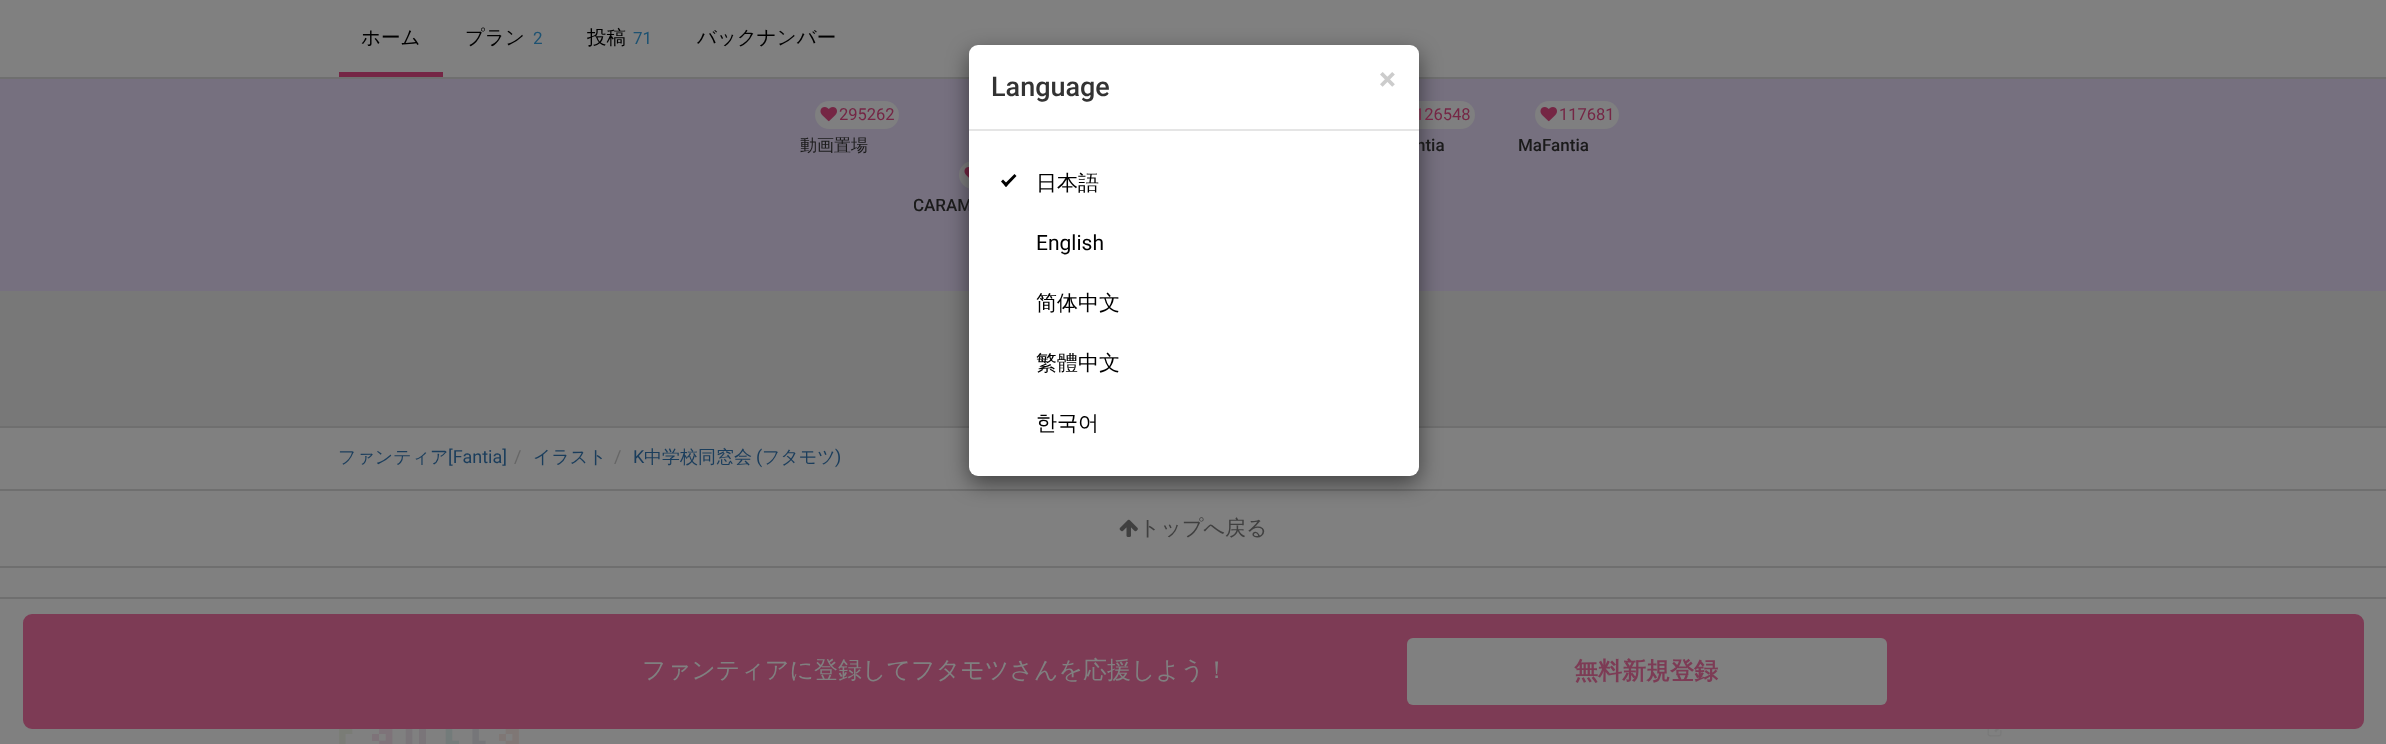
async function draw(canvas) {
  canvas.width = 2386;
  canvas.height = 744;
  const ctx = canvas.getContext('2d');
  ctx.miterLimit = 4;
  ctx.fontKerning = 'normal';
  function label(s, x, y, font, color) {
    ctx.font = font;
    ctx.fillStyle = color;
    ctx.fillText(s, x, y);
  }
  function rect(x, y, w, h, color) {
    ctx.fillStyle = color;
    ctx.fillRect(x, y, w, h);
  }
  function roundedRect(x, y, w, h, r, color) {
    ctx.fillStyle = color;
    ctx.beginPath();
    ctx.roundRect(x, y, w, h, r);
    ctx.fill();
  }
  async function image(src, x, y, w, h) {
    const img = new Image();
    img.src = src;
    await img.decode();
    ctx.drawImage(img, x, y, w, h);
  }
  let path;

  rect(0, 0, 2386, 744, '#787878');
  rect(0, 0, 2386, 77, '#808080');
  rect(0, 77, 2386, 2, '#6f6f6f');
  label('ホーム', 361, 44, '500 19.5px WenQuanYi Zen Hei', '#000');
  rect(339, 72, 104, 5, '#752645');
  label('プラン', 465, 44, '500 19.5px WenQuanYi Zen Hei', '#000');
  label('2', 533, 44, '17px Roboto', '#1d5272');
  label('投稿', 587, 44, '500 19.5px WenQuanYi Zen Hei', '#000');
  label('71', 633, 44, '17px Roboto', '#1d5272');
  label('バックナンバー', 697, 44, '500 19.5px WenQuanYi Zen Hei', '#000');
  rect(0, 597, 2386, 2, '#6f6f6f');
  rect(0, 599, 2386, 145, '#808080');
  ctx.fillStyle = '#7d3b55';
  ctx.beginPath();
  ctx.roundRect(24, 615, 2339, 113, 8);
  ctx.fill();
  ctx.strokeStyle = '#7d3b55';
  ctx.lineWidth = 2;
  ctx.stroke();
  label('ファンティアに登録してフタモツさんを応援しよう！', 642, 678, '500 24px WenQuanYi Zen Hei', '#808080');
  roundedRect(1407, 638, 480, 67, 6, '#808080');
  label('無料新規登録', 1574, 679, 'bold 24px WenQuanYi Zen Hei', '#7d3b55');
  rect(0, 79, 2386, 212, '#76707f');
  roundedRect(1391, 101, 84, 28, 14, '#7f7f80');
  roundedRect(959, 161, 84, 28, 14, '#7f7f80');
  await image('assets/img2.png', 964, 167, 5, 11);
  rect(0, 428, 2386, 61, '#808080');
  rect(0, 426, 2386, 2, '#6f6f6f');
  rect(0, 491, 2386, 75, '#808080');
  rect(0, 489, 2386, 2, '#6f6f6f');
  ctx.fillStyle = '#00000080';
  ctx.filter = 'blur(11px)';
  ctx.beginPath();
  ctx.roundRect(969, 53, 450, 430, 9);
  ctx.fill();
  ctx.filter = 'none';
  label('126548', 1415, 120, '16.5px Roboto', '#752645');
  label('ntia', 1416, 151, '500 17px Roboto', '#1a1a1a');
  ctx.save();
  ctx.beginPath();
  ctx.rect(914, 197, 129, 19);
  ctx.clip();
  label('CARAM', 913, 211, '500 17px Roboto', '#1a1a1a');
  ctx.restore();
  roundedRect(969, 45, 450, 431, 9, '#fff');
  rect(969, 129, 450, 2, '#e5e5e5');
  label('Language', 991, 96, '500 27px Roboto', '#333');
  label('×', 1379, 90, 'bold 32px Roboto', '#ccc');
  ctx.fillStyle = '#000';
  path = new Path2D('M1004 184.5L1014.5 174L1016.5 176L1006 187Z');
  ctx.fill(path);
  path = new Path2D('M1001 181.5L1003 179.5L1008 184.5L1006 187Z');
  ctx.fill(path);
  label('日本語', 1036, 190, '500 21px WenQuanYi Zen Hei', '#000');
  label('English', 1036, 250, '21px Roboto', '#000');
  label('简体中文', 1036, 310, '500 21px WenQuanYi Zen Hei', '#000');
  label('繁體中文', 1036, 370, '500 21px WenQuanYi Zen Hei', '#000');
  label('한국어', 1036, 430, '500 21px WenQuanYi Zen Hei', '#000');
  roundedRect(815, 101, 84, 28, 14, '#7f7f80');
  await image('assets/img1.png', 820, 107, 17, 15);
  label('295262', 839, 120, '16.5px Roboto', '#752645');
  label('動画置場', 800, 151, '500 17px WenQuanYi Zen Hei', '#1a1a1a');
  roundedRect(1535, 101, 84, 28, 14, '#7f7f80');
  await image('assets/img1.png', 1540, 107, 17, 15);
  label('117681', 1559, 120, '16.5px Roboto', '#752645');
  label('MaFantia', 1518, 151, '500 17px Roboto', '#1a1a1a');
  label('ファンティア', 338, 463, '500 18px WenQuanYi Zen Hei', '#1a3d5c');
  label('[Fantia]', 448, 463, '18px Roboto', '#1a3d5c');
  label('/', 514, 463, '18px Roboto', '#666');
  label('イラスト', 533, 463, '500 18px WenQuanYi Zen Hei', '#1a3d5c');
  label('/', 614, 463, '18px Roboto', '#666');
  label('K', 633, 463, '18px Roboto', '#1a3d5c');
  label('中学校同窓会', 644, 463, '500 18px WenQuanYi Zen Hei', '#1a3d5c');
  label('(', 756, 463, '18px Roboto', '#1a3d5c');
  label('フタモツ', 762, 463, '500 18px WenQuanYi Zen Hei', '#1a3d5c');
  label(')', 835, 463, '18px Roboto', '#1a3d5c');
  await image('assets/img3.png', 1119, 519, 19, 18);
  label('トップへ戻る', 1139, 535, '500 21px WenQuanYi Zen Hei', '#404040');
  rect(0, 568, 2386, 29, '#808080');
  rect(0, 566, 2386, 2, '#6f6f6f');
  await image('assets/img4.png', 339, 729, 180, 15);
  await image('assets/img5.png', 1987, 729, 15, 8);
}

draw(document.querySelector('canvas'));
